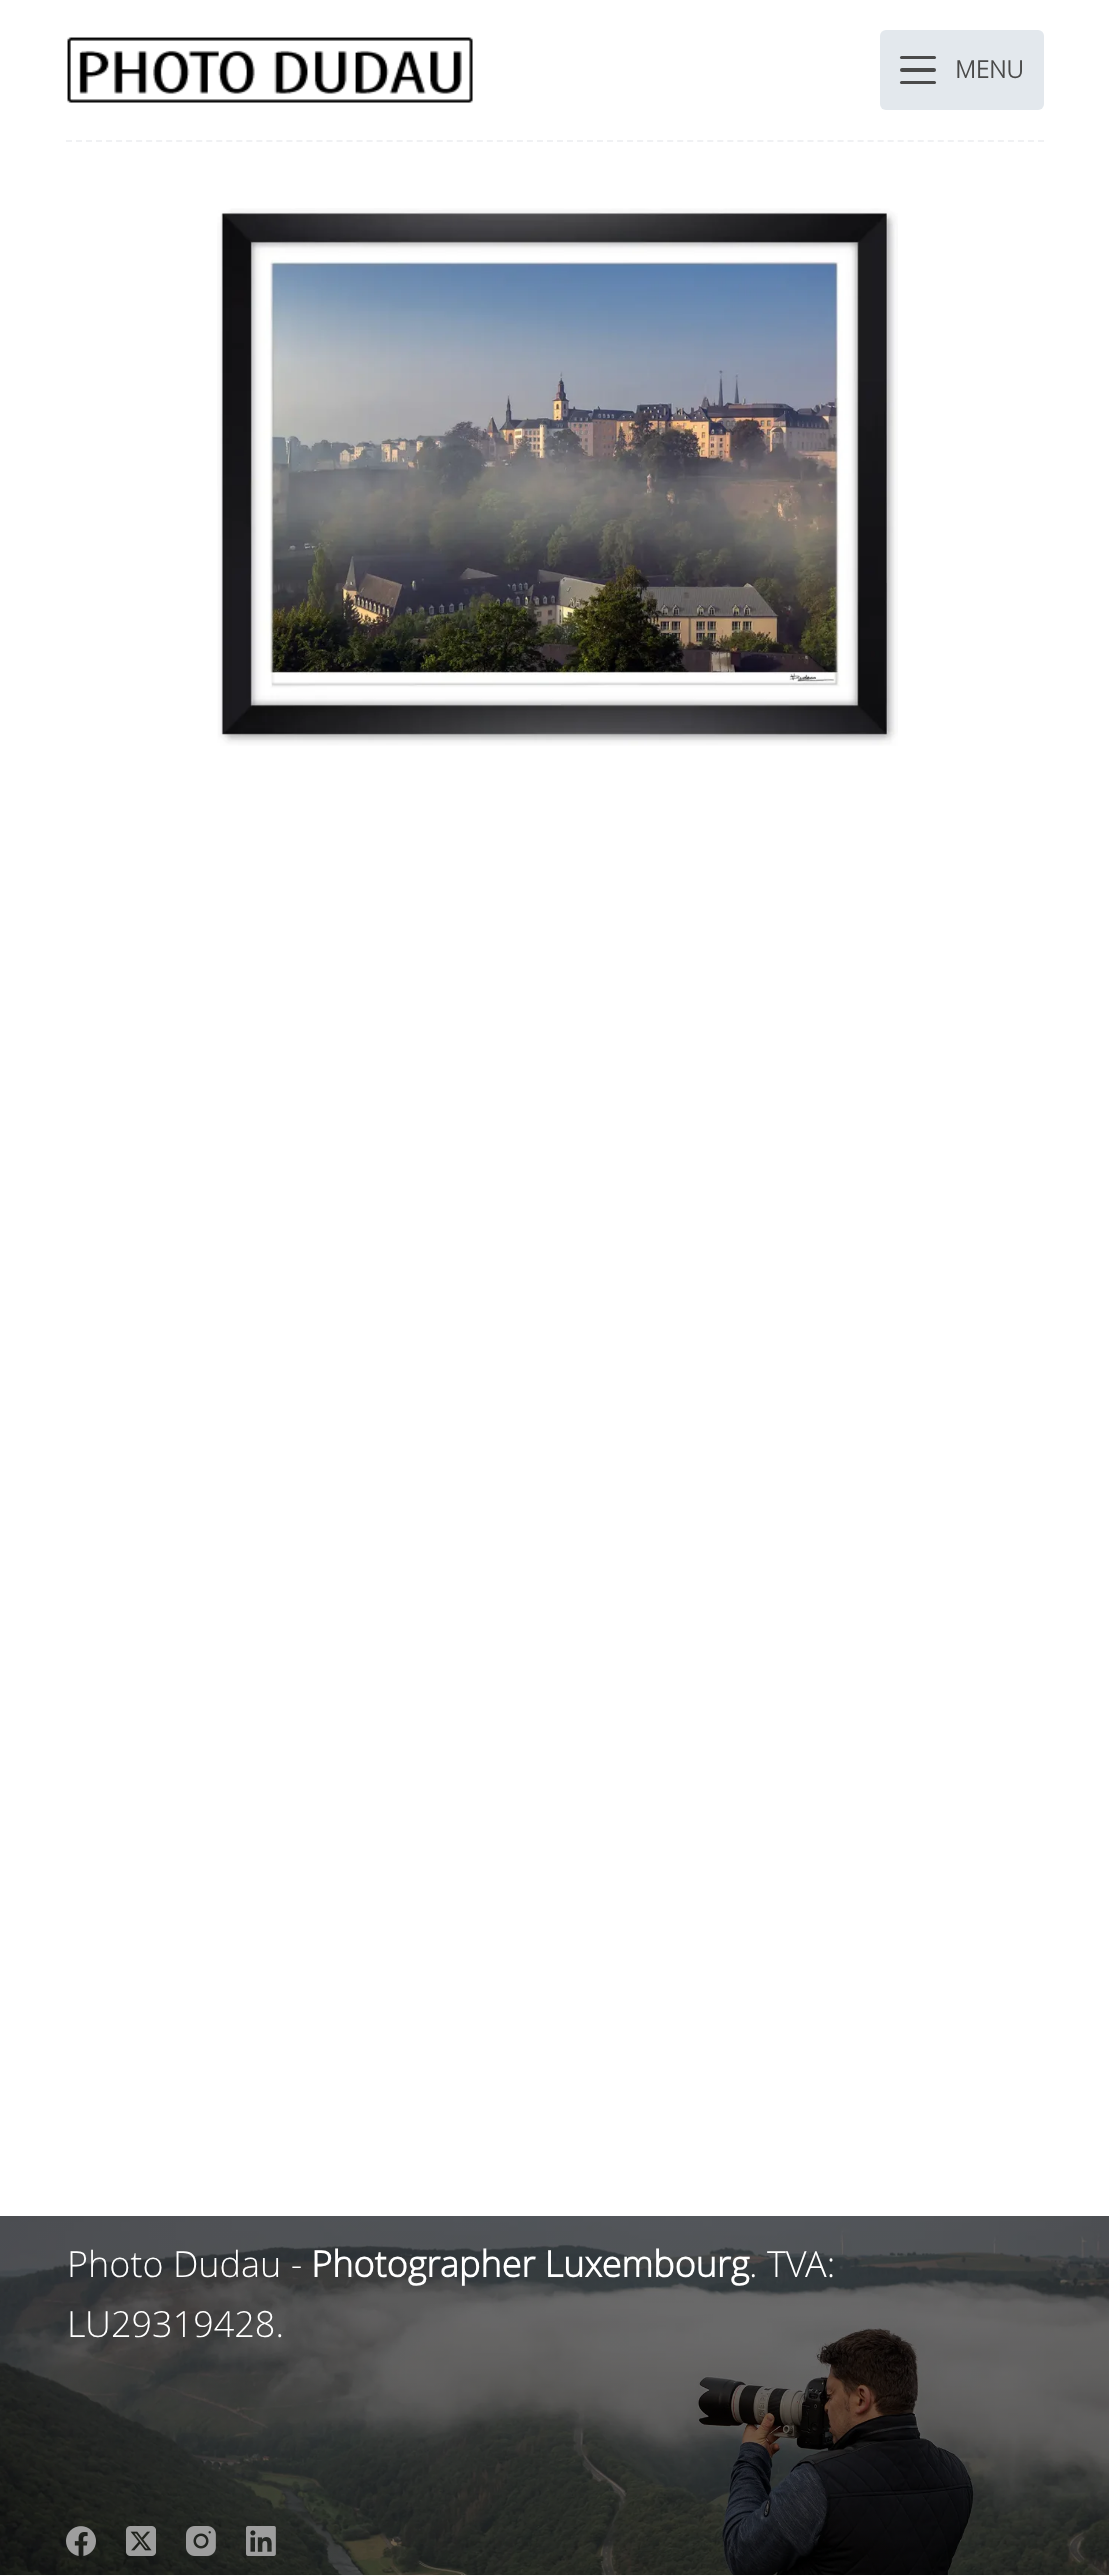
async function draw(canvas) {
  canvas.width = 1109;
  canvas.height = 2575;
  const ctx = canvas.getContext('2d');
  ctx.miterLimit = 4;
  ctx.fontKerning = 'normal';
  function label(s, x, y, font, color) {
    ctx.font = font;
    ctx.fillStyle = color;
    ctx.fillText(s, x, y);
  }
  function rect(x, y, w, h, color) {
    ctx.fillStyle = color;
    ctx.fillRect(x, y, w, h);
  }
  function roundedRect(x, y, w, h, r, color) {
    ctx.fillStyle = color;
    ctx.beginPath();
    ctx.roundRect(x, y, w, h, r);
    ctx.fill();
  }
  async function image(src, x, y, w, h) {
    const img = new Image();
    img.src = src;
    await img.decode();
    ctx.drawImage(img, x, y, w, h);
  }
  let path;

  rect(0, 0, 1109, 2575, '#fff');
  path = new Path2D('M66 141H1044');
  ctx.strokeStyle = '#f0f1f3';
  ctx.lineWidth = 2;
  ctx.setLineDash([6, 4.02]);
  ctx.stroke(path);
  await image('assets/img1.png', 67, 37, 406, 66);
  roundedRect(880, 30, 164, 80, 6, '#e3e8ed');
  roundedRect(900, 56, 36, 3, 1.5, '#4a4a4a');
  roundedRect(900, 68, 36, 4, 2, '#4a4a4a');
  roundedRect(900, 81, 36, 3, 1.5, '#4a4a4a');
  label('MENU', 955, 78, 'bold 24px Open Sans', '#4a4a4a');
  await image('assets/img2.png', 217, 208, 681, 538);
  await image('assets/img3.png', 0, 2216, 1109, 359);
  label('Photo Dudau -', 67, 2277, '300 36px Open Sans', '#fff');
  label('Photographer Luxembourg', 311, 2277, 'bold 36px Open Sans', '#fff');
  label('. TVA:', 749, 2277, '300 36px Open Sans', '#fff');
  label('LU29319428.', 67, 2337, '300 36px Open Sans', '#fff');
  await image('assets/img4.png', 66, 2526, 30, 30);
  await image('assets/img5.png', 126, 2526, 30, 30);
  await image('assets/img6.png', 186, 2526, 30, 30);
  await image('assets/img7.png', 246, 2526, 30, 30);
}

draw(document.querySelector('canvas'));
